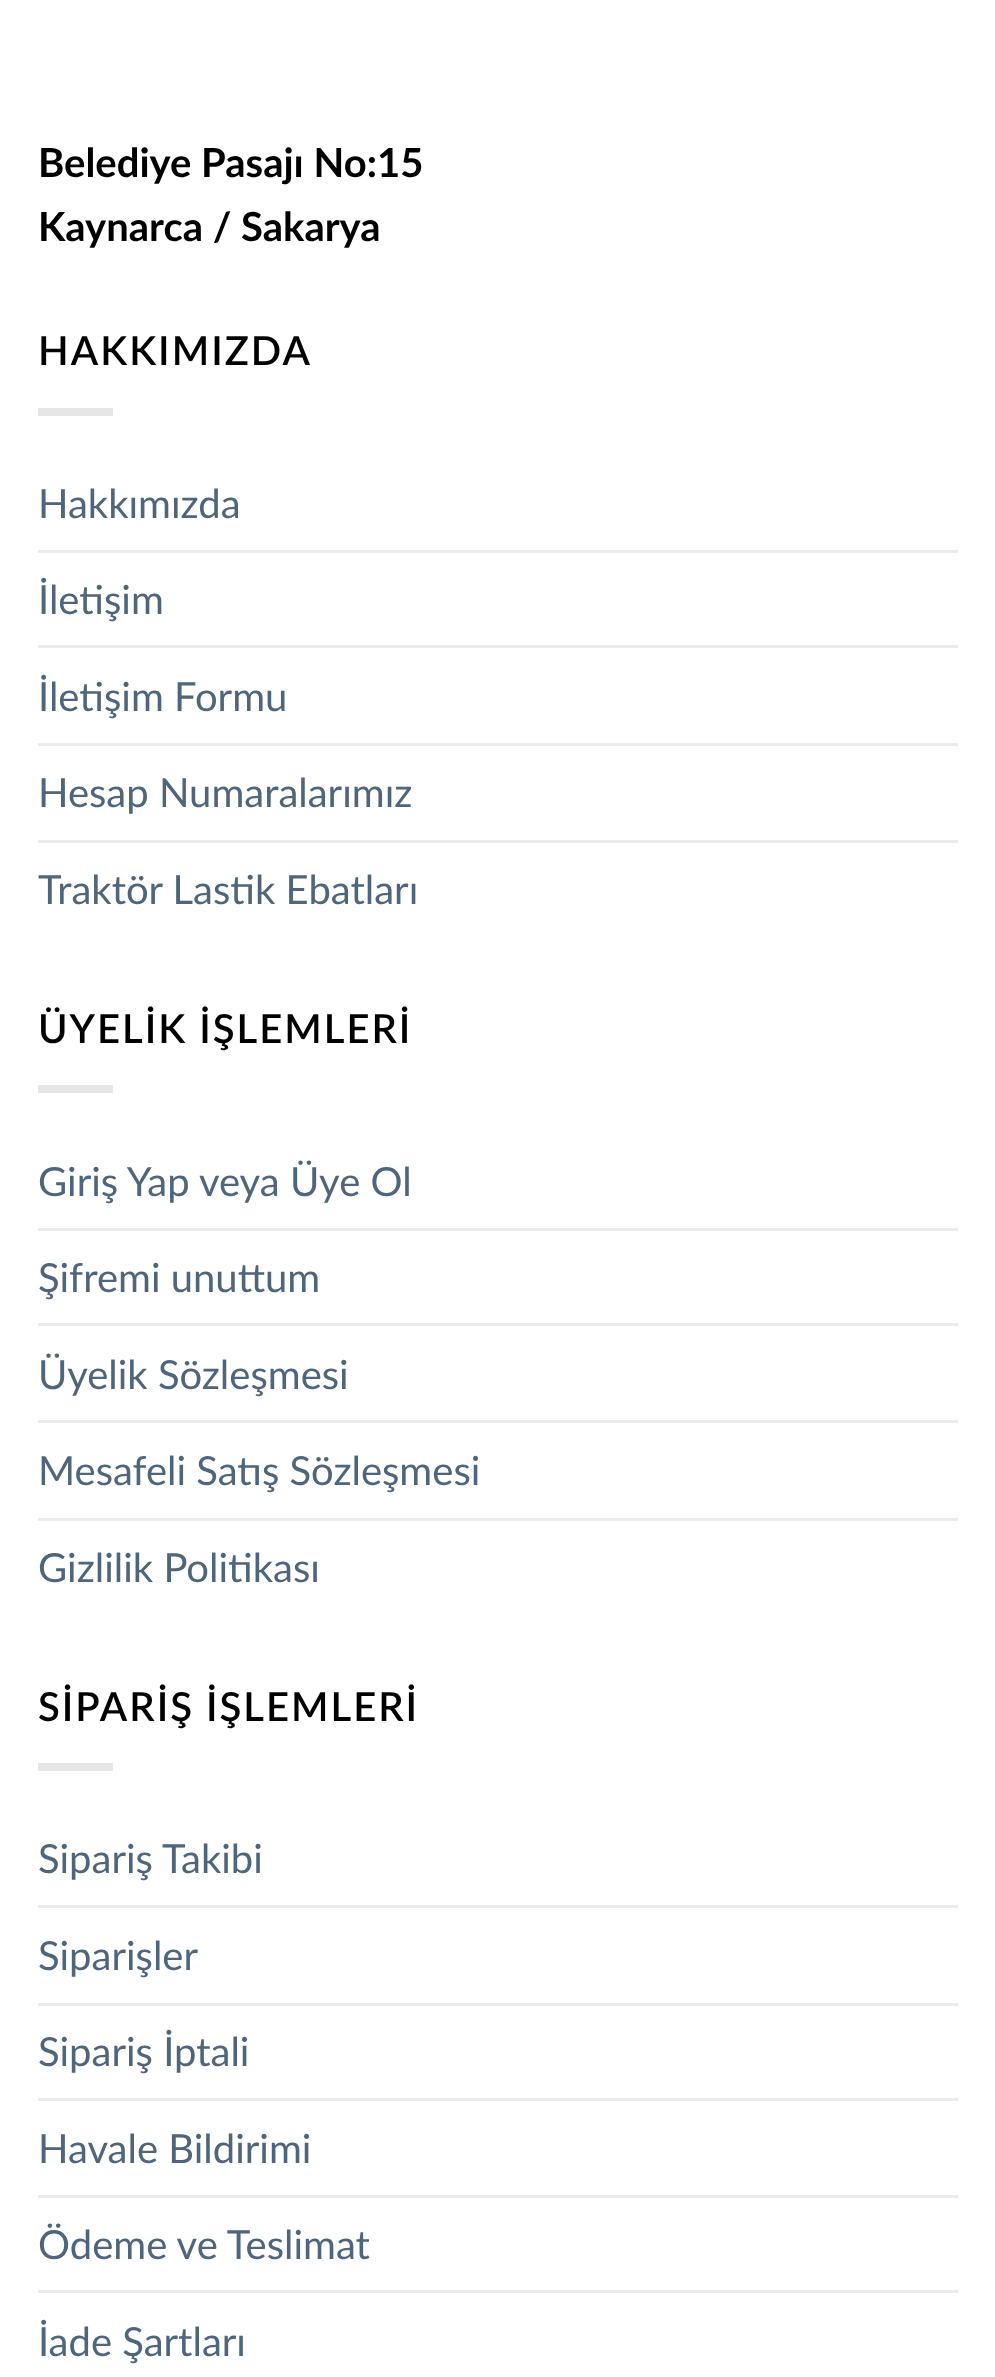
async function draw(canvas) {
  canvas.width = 995;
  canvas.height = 2377;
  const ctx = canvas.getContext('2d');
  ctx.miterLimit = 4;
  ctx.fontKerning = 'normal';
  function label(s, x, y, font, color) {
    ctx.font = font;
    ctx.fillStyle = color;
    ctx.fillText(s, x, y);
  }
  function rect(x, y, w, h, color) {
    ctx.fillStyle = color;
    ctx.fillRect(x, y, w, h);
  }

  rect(0, 0, 995, 2377, '#fff');
  label('Belediye Pasajı No:15', 38, 177, 'bold 40px Lato', '#000');
  label('Kaynarca / Sakarya', 38, 241, 'bold 40px Lato', '#000');
  ctx.letterSpacing = '2px';
  label('HAKKIMIZDA', 38, 365, '600 40px Lato', '#000');
  rect(38, 408, 75, 8, '#e6e6e6');
  ctx.letterSpacing = '0px';
  label('Hakkımızda', 38, 518, '40px Lato', '#4e657b');
  rect(38, 550, 920, 3, '#ececec');
  label('İletişim', 38, 614, '40px Lato', '#4e657b');
  rect(38, 645, 920, 3, '#ececec');
  label('İletişim Formu', 38, 711, '40px Lato', '#4e657b');
  rect(38, 743, 920, 3, '#ececec');
  label('Hesap Numaralarımız', 38, 807, '40px Lato', '#4e657b');
  rect(38, 840, 920, 3, '#ececec');
  label('Traktör Lastik Ebatları', 38, 904, '40px Lato', '#4e657b');
  ctx.letterSpacing = '2px';
  label('ÜYELİK İŞLEMLERİ', 38, 1043, '600 40px Lato', '#000');
  rect(38, 1085, 75, 8, '#e6e6e6');
  ctx.letterSpacing = '0px';
  label('Giriş Yap veya Üye Ol', 38, 1196, '40px Lato', '#4e657b');
  rect(38, 1228, 920, 3, '#ececec');
  label('Şifremi unuttum', 38, 1292, '40px Lato', '#4e657b');
  rect(38, 1323, 920, 3, '#ececec');
  label('Üyelik Sözleşmesi', 38, 1389, '40px Lato', '#4e657b');
  rect(38, 1420, 920, 3, '#ececec');
  label('Mesafeli Satış Sözleşmesi', 38, 1485, '40px Lato', '#4e657b');
  rect(38, 1518, 920, 3, '#ececec');
  label('Gizlilik Politikası', 38, 1582, '40px Lato', '#4e657b');
  ctx.letterSpacing = '2px';
  label('SİPARİŞ İŞLEMLERİ', 38, 1721, '600 40px Lato', '#000');
  rect(38, 1763, 75, 8, '#e6e6e6');
  ctx.letterSpacing = '0px';
  label('Sipariş Takibi', 38, 1873, '40px Lato', '#4e657b');
  rect(38, 1905, 920, 3, '#ececec');
  label('Siparişler', 38, 1970, '40px Lato', '#4e657b');
  rect(38, 2003, 920, 3, '#ececec');
  label('Sipariş İptali', 38, 2066, '40px Lato', '#4e657b');
  rect(38, 2098, 920, 3, '#ececec');
  label('Havale Bildirimi', 38, 2163, '40px Lato', '#4e657b');
  rect(38, 2195, 920, 3, '#ececec');
  label('Ödeme ve Teslimat', 38, 2259, '40px Lato', '#4e657b');
  rect(38, 2290, 920, 3, '#ececec');
  label('İade Şartları', 38, 2356, '40px Lato', '#4e657b');
}

draw(document.querySelector('canvas'));
